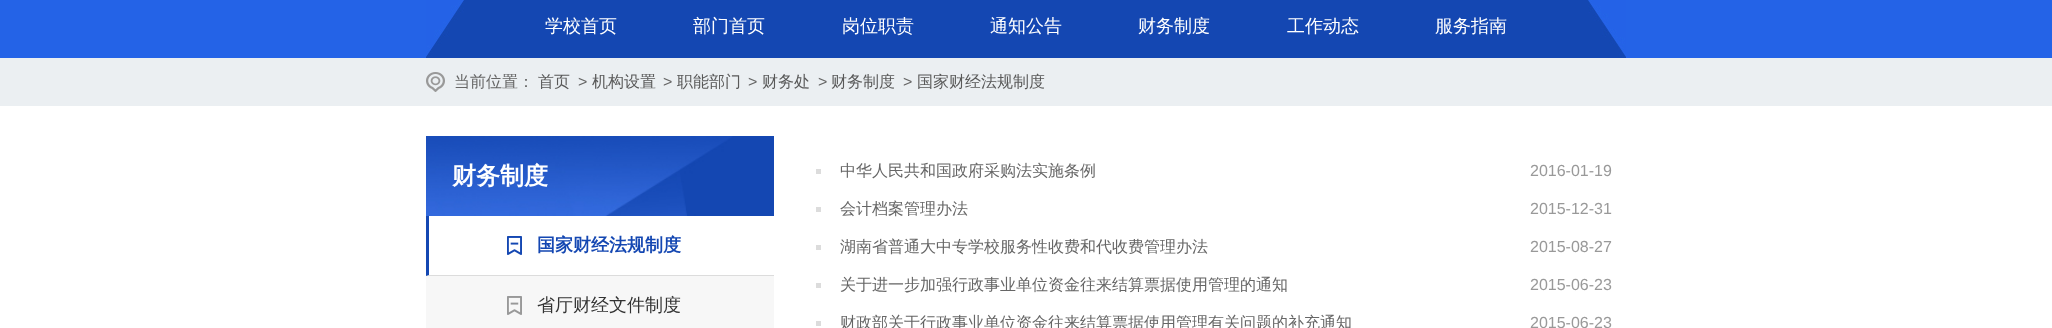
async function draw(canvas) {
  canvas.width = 2052;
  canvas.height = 328;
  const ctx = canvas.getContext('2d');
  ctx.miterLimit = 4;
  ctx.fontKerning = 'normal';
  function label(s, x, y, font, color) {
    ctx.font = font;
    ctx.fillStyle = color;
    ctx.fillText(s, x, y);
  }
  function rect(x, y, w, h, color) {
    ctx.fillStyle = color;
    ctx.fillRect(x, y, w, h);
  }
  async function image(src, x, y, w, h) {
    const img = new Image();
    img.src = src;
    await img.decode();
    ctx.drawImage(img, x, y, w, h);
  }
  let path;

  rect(0, 0, 2052, 328, '#fff');
  rect(0, 0, 2052, 58, '#2463e7');
  rect(426, 0, 1200, 58, '#1447b2');
  await image('assets/img1.png', 426, 0, 38, 57);
  label('学校首页', 545, 32, '500 18px WenQuanYi Zen Hei', '#fff');
  label('部门首页', 693, 32, '500 18px WenQuanYi Zen Hei', '#fff');
  label('岗位职责', 842, 32, '500 18px WenQuanYi Zen Hei', '#fff');
  label('通知公告', 990, 32, '500 18px WenQuanYi Zen Hei', '#fff');
  label('财务制度', 1138, 32, '500 18px WenQuanYi Zen Hei', '#fff');
  label('工作动态', 1287, 32, '500 18px WenQuanYi Zen Hei', '#fff');
  label('服务指南', 1435, 32, '500 18px WenQuanYi Zen Hei', '#fff');
  await image('assets/img2.png', 1588, 0, 38, 57);
  rect(0, 58, 2052, 48, '#ebeff2');
  await image('assets/img3.png', 426, 72, 19, 20);
  label('当前位置：', 454, 87, '500 16px WenQuanYi Zen Hei', '#666');
  label('首页', 538, 87, '500 16px WenQuanYi Zen Hei', '#595959');
  label('>', 578, 87, '16px Liberation Sans', '#666');
  label('机构设置', 592, 87, '500 16px WenQuanYi Zen Hei', '#595959');
  label('>', 663, 87, '16px Liberation Sans', '#666');
  label('职能部门', 677, 87, '500 16px WenQuanYi Zen Hei', '#595959');
  label('>', 748, 87, '16px Liberation Sans', '#666');
  label('财务处', 762, 87, '500 16px WenQuanYi Zen Hei', '#595959');
  label('>', 818, 87, '16px Liberation Sans', '#666');
  label('财务制度', 831, 87, '500 16px WenQuanYi Zen Hei', '#595959');
  label('>', 903, 87, '16px Liberation Sans', '#666');
  label('国家财经法规制度', 917, 87, '500 16px WenQuanYi Zen Hei', '#595959');
  await image('assets/img4.png', 426, 136, 348, 80);
  label('财务制度', 452, 184, 'bold 24px WenQuanYi Zen Hei', '#fff');
  rect(426, 276, 348, 52, '#f7f7f7');
  ctx.fillStyle = '#dcdcdc';
  path = new Path2D('M774 276H426L429 275H774Z');
  ctx.fill(path);
  ctx.fillStyle = '#1447b2';
  path = new Path2D('M426 276V216H429V275Z');
  ctx.fill(path);
  await image('assets/img5.png', 507, 236, 15, 19);
  label('国家财经法规制度', 537, 251, 'bold 18px WenQuanYi Zen Hei', '#1447b2');
  await image('assets/img6.png', 507, 296, 15, 19);
  label('省厅财经文件制度', 537, 311, '500 18px WenQuanYi Zen Hei', '#333');
  rect(816, 169, 5, 5, '#dcdcdc');
  label('中华人民共和国政府采购法实施条例', 840, 176, '500 16px WenQuanYi Zen Hei', '#666');
  label('2016-01-19', 1530, 176, '16px Liberation Sans', '#999');
  rect(816, 207, 5, 5, '#dcdcdc');
  label('会计档案管理办法', 840, 214, '500 16px WenQuanYi Zen Hei', '#666');
  label('2015-12-31', 1530, 214, '16px Liberation Sans', '#999');
  rect(816, 245, 5, 5, '#dcdcdc');
  label('湖南省普通大中专学校服务性收费和代收费管理办法', 840, 252, '500 16px WenQuanYi Zen Hei', '#666');
  label('2015-08-27', 1530, 252, '16px Liberation Sans', '#999');
  rect(816, 283, 5, 5, '#dcdcdc');
  label('关于进一步加强行政事业单位资金往来结算票据使用管理的通知', 840, 290, '500 16px WenQuanYi Zen Hei', '#666');
  label('2015-06-23', 1530, 290, '16px Liberation Sans', '#999');
  rect(816, 321, 5, 5, '#dcdcdc');
  label('财政部关于行政事业单位资金往来结算票据使用管理有关问题的补充通知', 840, 328, '500 16px WenQuanYi Zen Hei', '#666');
  label('2015-06-23', 1530, 328, '16px Liberation Sans', '#999');
}

draw(document.querySelector('canvas'));
